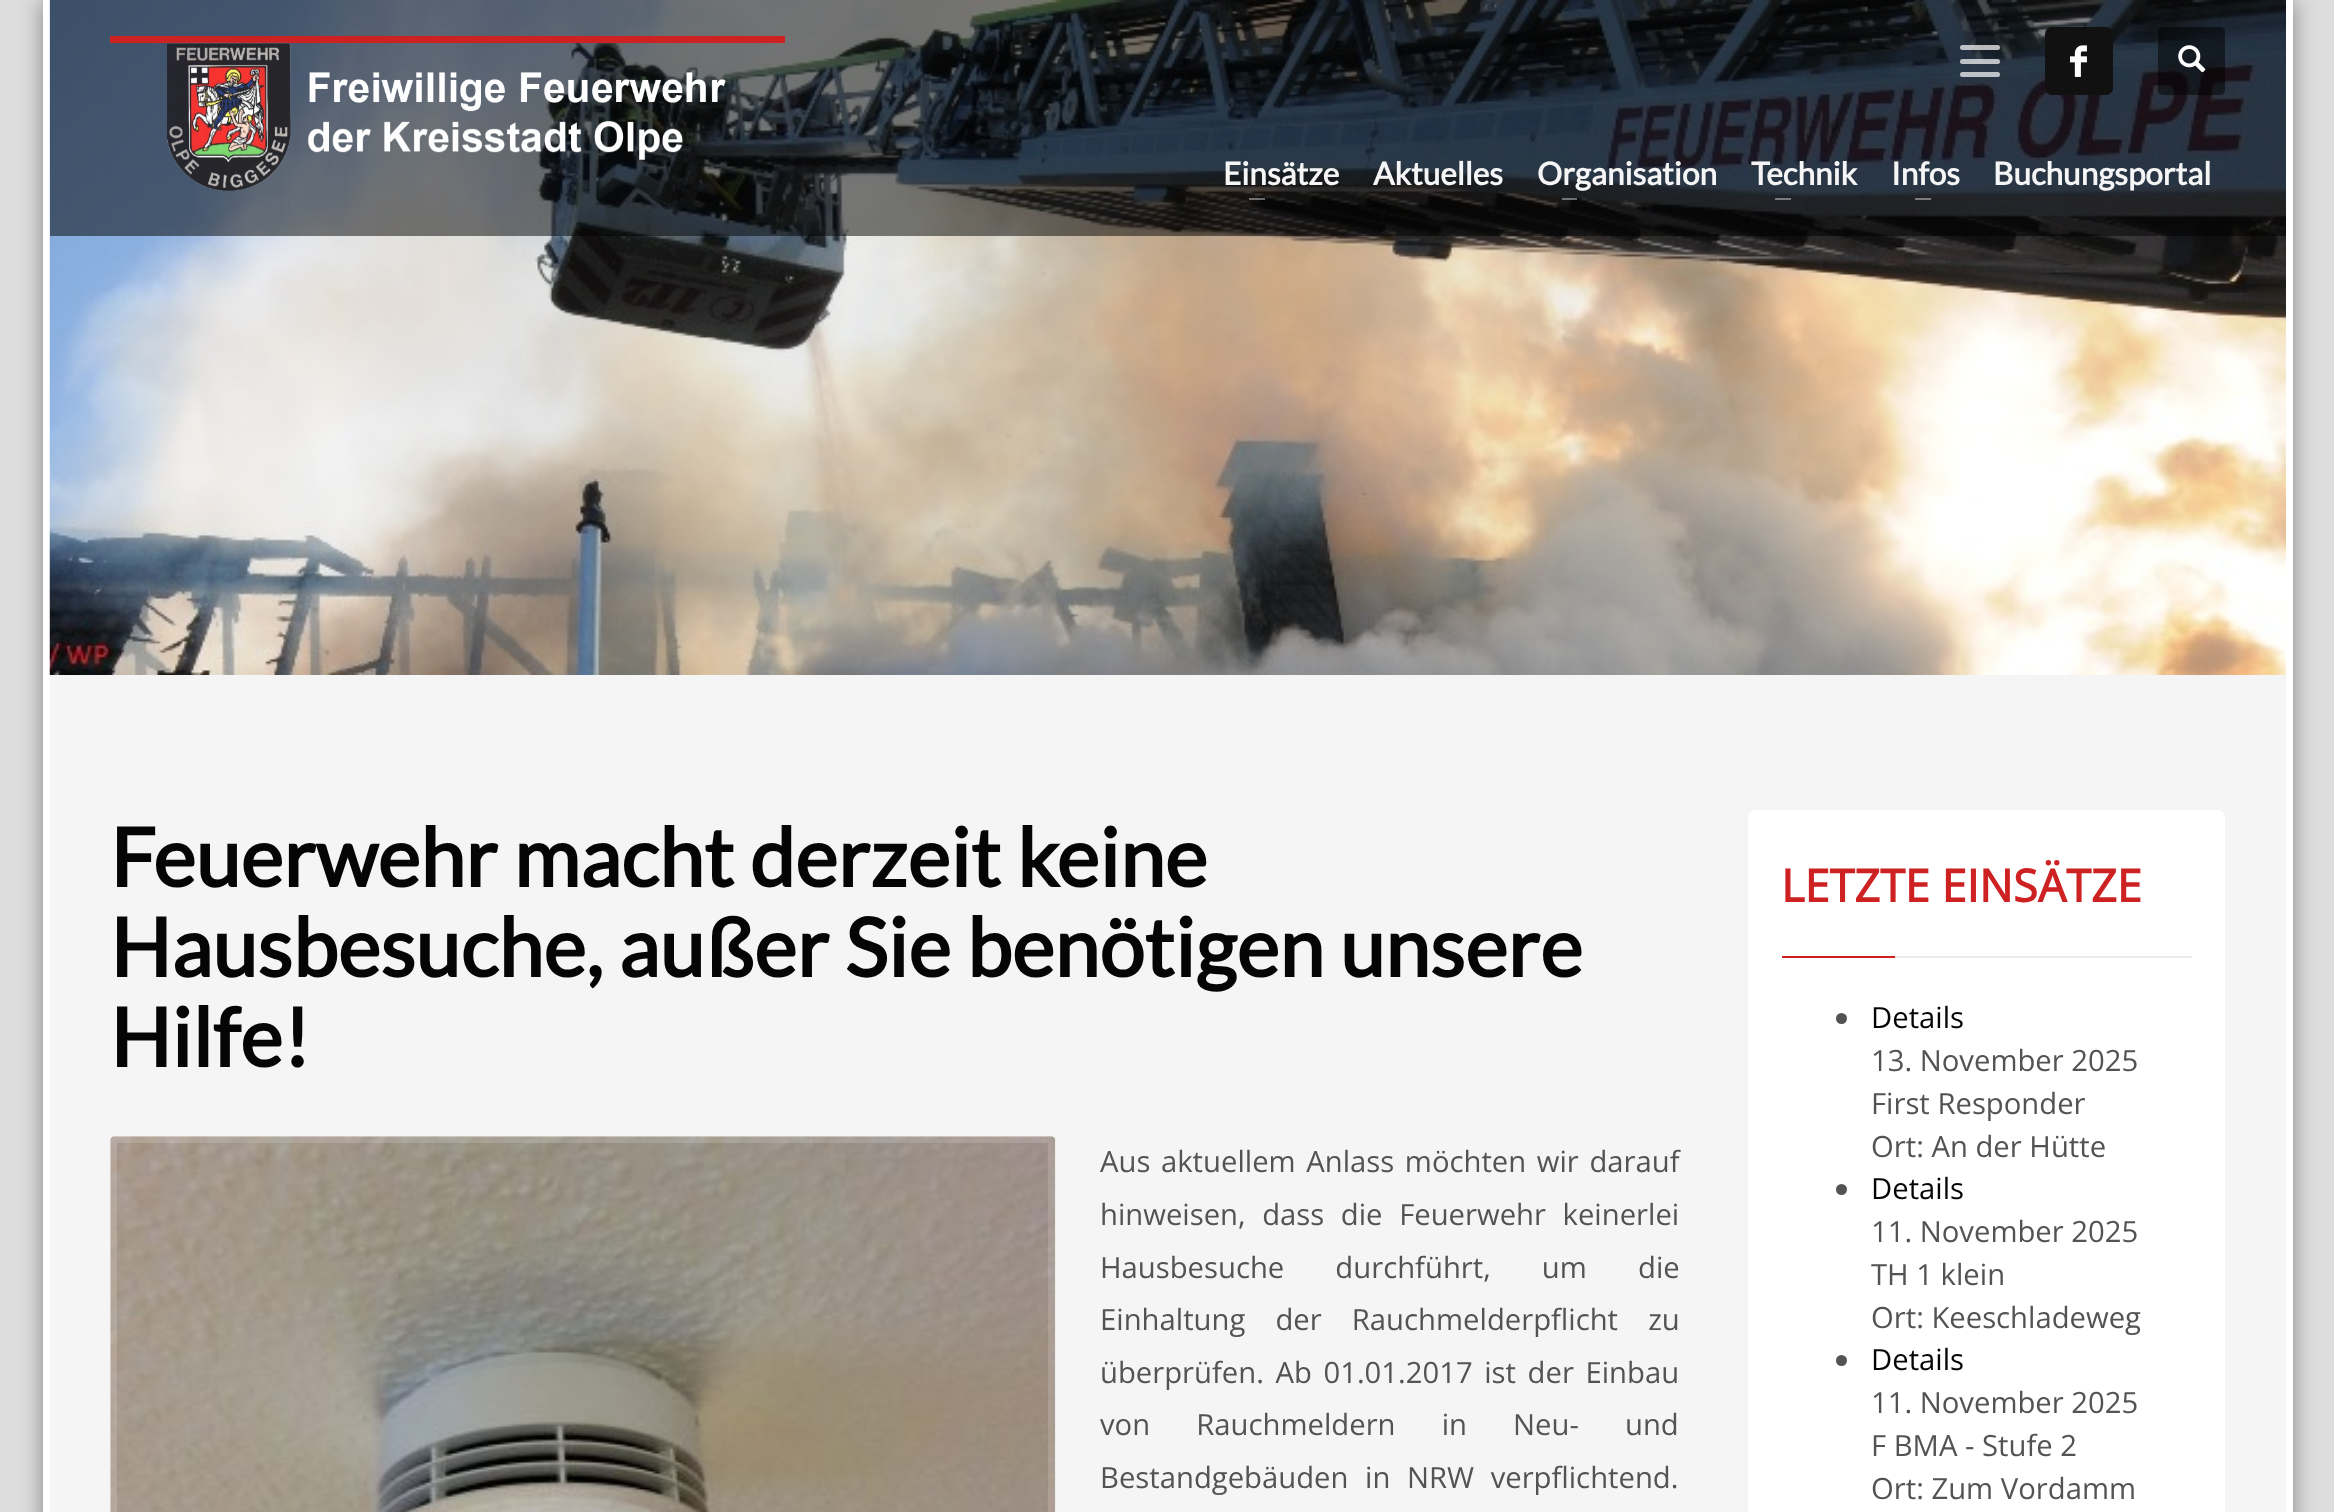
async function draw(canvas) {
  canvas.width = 2334;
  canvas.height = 1512;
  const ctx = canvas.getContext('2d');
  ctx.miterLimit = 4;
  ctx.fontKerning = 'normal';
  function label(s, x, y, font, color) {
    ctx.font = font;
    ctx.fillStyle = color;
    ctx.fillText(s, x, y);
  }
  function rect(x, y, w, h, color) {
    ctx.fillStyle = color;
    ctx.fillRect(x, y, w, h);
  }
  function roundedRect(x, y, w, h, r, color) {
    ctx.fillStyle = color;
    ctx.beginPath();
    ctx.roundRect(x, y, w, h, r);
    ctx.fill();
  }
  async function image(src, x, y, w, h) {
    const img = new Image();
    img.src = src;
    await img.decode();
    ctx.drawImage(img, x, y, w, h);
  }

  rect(0, 0, 2334, 1512, '#ddd');
  ctx.fillStyle = '#00000066';
  ctx.filter = 'blur(11px)';
  ctx.beginPath();
  ctx.rect(43, 0, 2250, 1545);
  ctx.fill();
  ctx.filter = 'none';
  rect(50, 675, 2236, 837, '#f5f5f5');
  rect(2286, 0, 7, 1512, '#fff');
  rect(43, 0, 7, 1512, '#fff');
  await image('assets/img1.png', 49, 0, 2237, 675);
  rect(50, 0, 2236, 236, '#00000080');
  rect(110, 36, 675, 7, '#cd2122');
  await image('assets/img2.png', 167, 42, 559, 149);
  roundedRect(1960, 72, 40, 5, 2.5, '#ffffffb3');
  roundedRect(1960, 59, 40, 5, 2.5, '#ffffffb3');
  roundedRect(1960, 45, 40, 5, 2.5, '#ffffffb3');
  roundedRect(2045, 27, 68, 68, 7, '#111');
  await image('assets/img3.png', 2070, 45, 17, 32);
  roundedRect(2158, 27, 67, 68, 5, '#00000080');
  await image('assets/img4.png', 2178, 45, 28, 28);
  label('Einsätze', 1223, 185, 'bold 31.5px Lato', '#f5f5f5');
  rect(1249, 198, 16, 2, '#ffffff66');
  label('Aktuelles', 1373, 185, 'bold 31.5px Lato', '#f5f5f5');
  label('Organisation', 1537, 185, 'bold 31.5px Lato', '#f5f5f5');
  rect(1562, 198, 15, 2, '#ffffff66');
  label('Technik', 1751, 185, 'bold 31.5px Lato', '#f5f5f5');
  rect(1775, 198, 16, 2, '#ffffff66');
  label('Infos', 1891, 185, 'bold 31.5px Lato', '#f5f5f5');
  rect(1915, 198, 16, 2, '#7a7b7d');
  label('Buchungsportal', 1993, 185, 'bold 31.5px Lato', '#f5f5f5');
  label('Feuerwehr macht derzeit keine', 110, 887, 'bold 81px Lato', '#050505');
  label('Hausbesuche, außer Sie benötigen unsere', 110, 977, 'bold 81px Lato', '#050505');
  label('Hilfe!', 110, 1067, 'bold 81px Lato', '#050505');
  await image('assets/img5.png', 110, 1136, 946, 376);
  ctx.beginPath();
  ctx.roundRect(113.5, 1139.5, 938, 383, 3.5);
  ctx.strokeStyle = '#ffffff26';
  ctx.lineWidth = 7;
  ctx.stroke();
  ctx.wordSpacing = '3px';
  label('Aus aktuellem Anlass möchten wir darauf', 1100, 1172, '29.25px Open Sans', '#535353');
  ctx.wordSpacing = '9px';
  label('hinweisen, dass die Feuerwehr keinerlei', 1100, 1225, '29.25px Open Sans', '#535353');
  ctx.wordSpacing = '43.5px';
  label('Hausbesuche durchführt, um die', 1100, 1278, '29.25px Open Sans', '#535353');
  ctx.wordSpacing = '22.5px';
  label('Einhaltung der Rauchmelderpflicht zu', 1100, 1330, '29.25px Open Sans', '#535353');
  ctx.wordSpacing = '4px';
  label('überprüfen. Ab 01.01.2017 ist der Einbau', 1100, 1383, '29.25px Open Sans', '#535353');
  ctx.wordSpacing = '38.5px';
  label('von Rauchmeldern in Neu- und', 1100, 1435, '29.25px Open Sans', '#535353');
  ctx.wordSpacing = '9px';
  label('Bestandgebäuden in NRW verpflichtend.', 1100, 1488, '29.25px Open Sans', '#535353');
  roundedRect(1748, 810, 477, 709, 7, '#fff');
  ctx.wordSpacing = '0px';
  label('LETZTE EINSÄTZE', 1781, 902, 'bold 45px Open Sans', '#cd2122');
  rect(1782, 956, 113, 2, '#cd2122');
  rect(1895, 956, 297, 2, '#ececec');
  ctx.fillStyle = '#535353';
  ctx.beginPath();
  ctx.arc(1841.5, 1018.5, 5.5, 0, 2 * Math.PI);
  ctx.fill();
  label('Details', 1871, 1028, '29.25px Open Sans', '#050505');
  label('13. November 2025', 1871, 1071, '29.25px Open Sans', '#535353');
  label('First Responder', 1871, 1114, '29.25px Open Sans', '#535353');
  label('Ort: An der Hütte', 1871, 1157, '29.25px Open Sans', '#535353');
  ctx.beginPath();
  ctx.arc(1841.5, 1189.5, 5.5, 0, 2 * Math.PI);
  ctx.fill();
  label('Details', 1871, 1199, '29.25px Open Sans', '#050505');
  label('11. November 2025', 1871, 1242, '29.25px Open Sans', '#535353');
  label('TH 1 klein', 1871, 1285, '29.25px Open Sans', '#535353');
  label('Ort: Keeschladeweg', 1871, 1328, '29.25px Open Sans', '#535353');
  ctx.beginPath();
  ctx.arc(1841.5, 1360.5, 5.5, 0, 2 * Math.PI);
  ctx.fill();
  label('Details', 1871, 1370, '29.25px Open Sans', '#050505');
  label('11. November 2025', 1871, 1413, '29.25px Open Sans', '#535353');
  label('F BMA - Stufe 2', 1871, 1456, '29.25px Open Sans', '#535353');
  label('Ort: Zum Vordamm', 1871, 1499, '29.25px Open Sans', '#535353');
}

draw(document.querySelector('canvas'));
